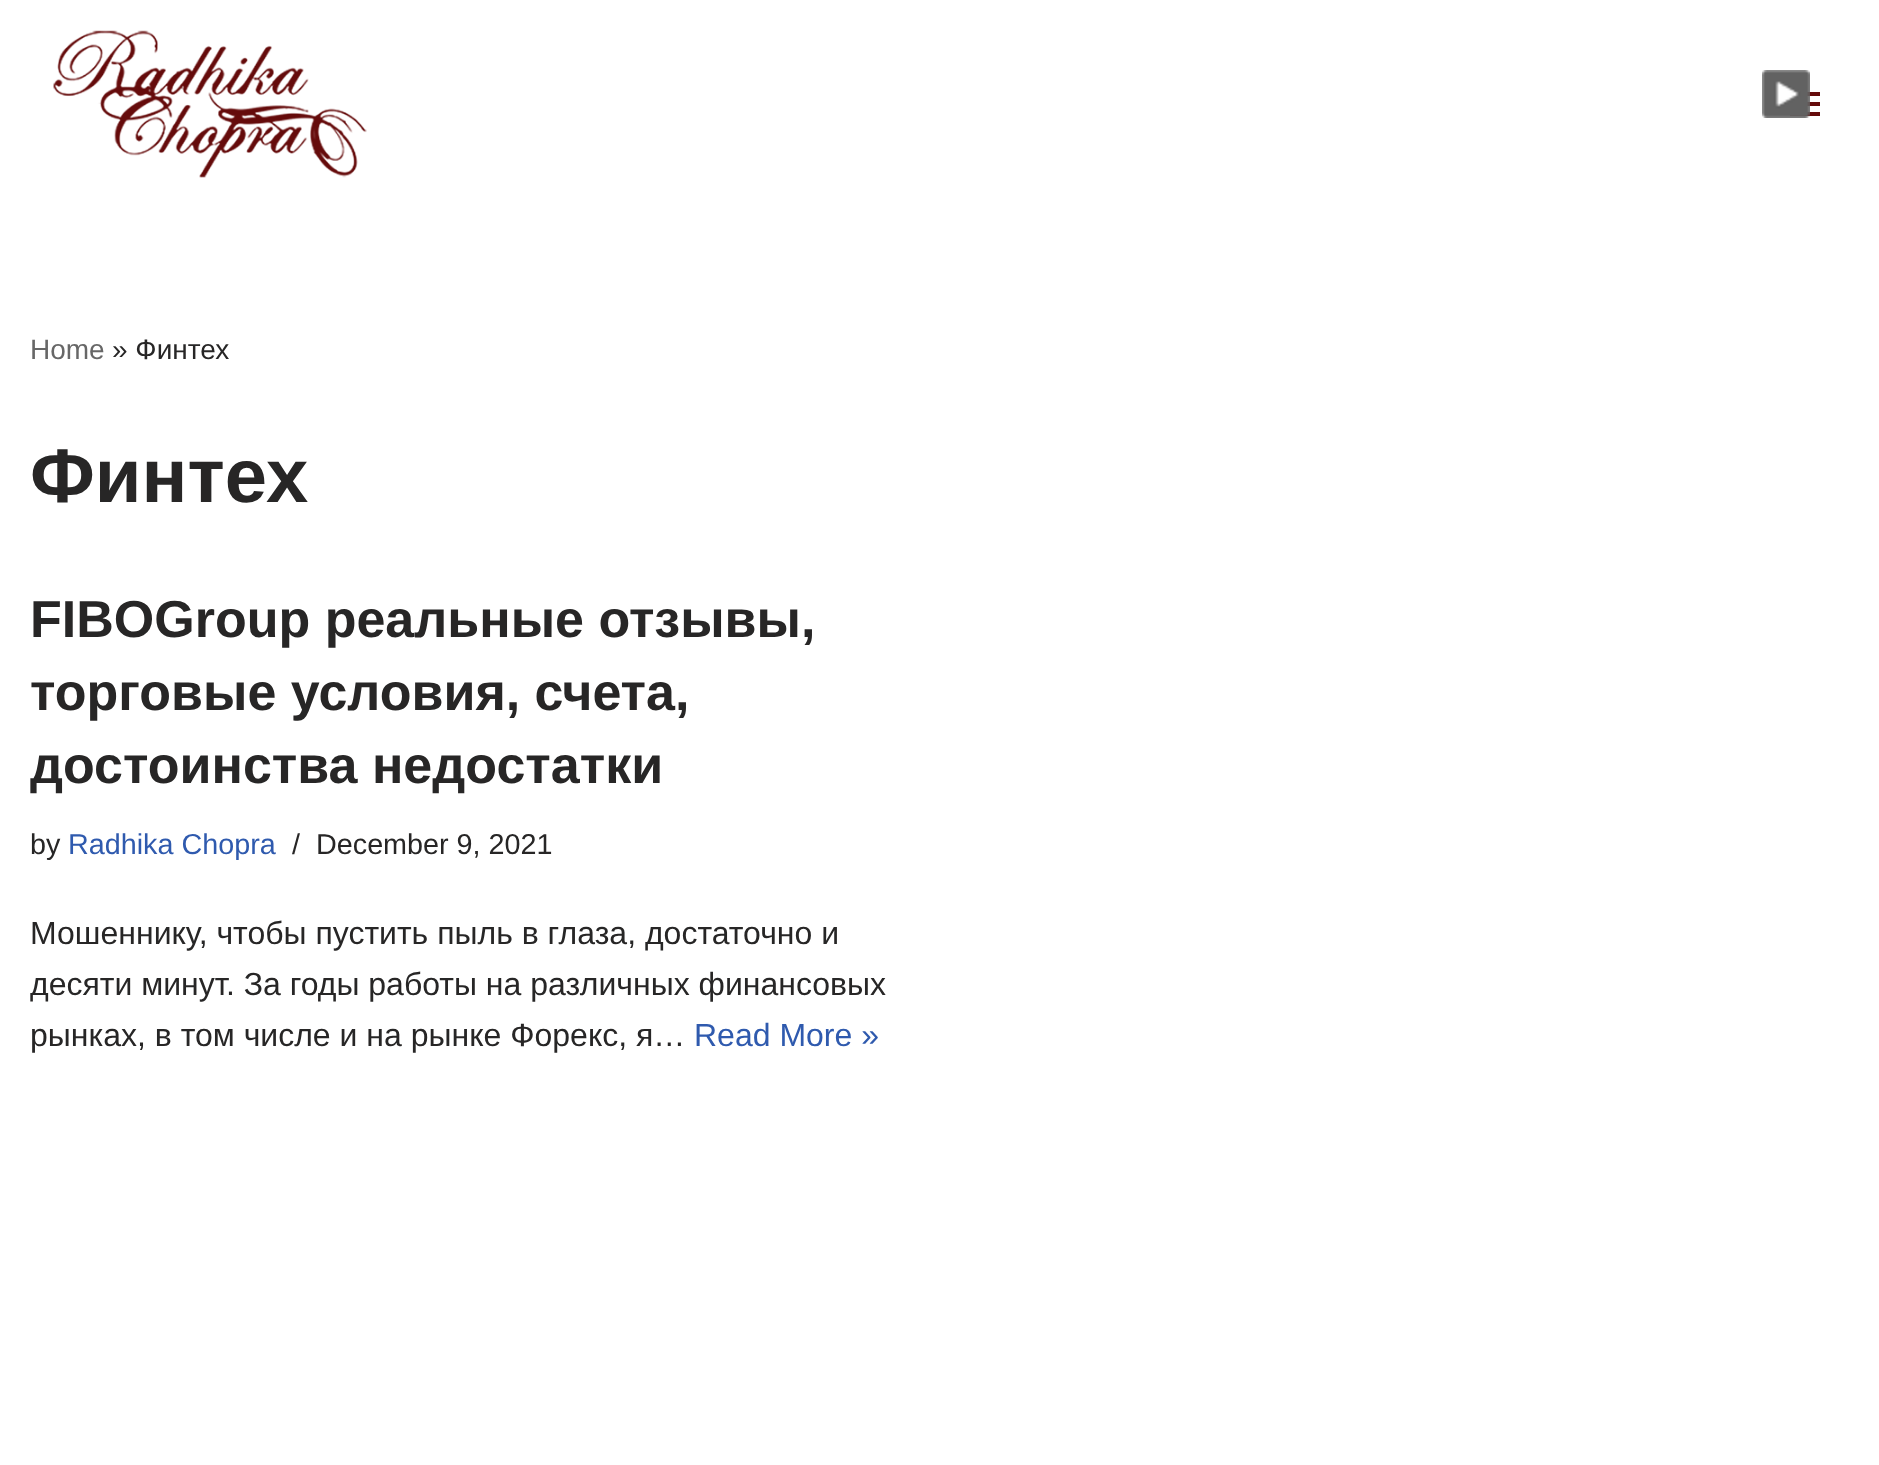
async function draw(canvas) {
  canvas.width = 1879;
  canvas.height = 1465;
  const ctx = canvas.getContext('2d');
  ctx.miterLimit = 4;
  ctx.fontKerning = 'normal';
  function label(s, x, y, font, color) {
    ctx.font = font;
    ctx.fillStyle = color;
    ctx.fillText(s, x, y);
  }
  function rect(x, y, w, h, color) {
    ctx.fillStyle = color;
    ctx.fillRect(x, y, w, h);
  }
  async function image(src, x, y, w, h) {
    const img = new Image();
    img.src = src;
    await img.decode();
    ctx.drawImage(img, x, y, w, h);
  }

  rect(0, 0, 1879, 1465, '#fff');
  rect(1807, 92, 13, 4, '#650b0b');
  rect(1807, 102, 13, 4, '#650b0b');
  rect(1790, 112, 30, 4, '#650b0b');
  await image('assets/img1.png', 1762, 70, 48, 48);
  await image('assets/img2.png', 53, 30, 314, 148);
  label('Home', 30, 359, '28px Liberation Sans', '#676767');
  label('» Финтех', 112, 359, '28px Liberation Sans', '#272626');
  label('Финтех', 30, 502, 'bold 76px Liberation Sans', '#272626');
  label('FIBOGroup реальные отзывы,', 30, 637, 'bold 52px Liberation Sans', '#272626');
  label('торговые условия, счета,', 30, 710, 'bold 52px Liberation Sans', '#272626');
  label('достоинства недостатки', 30, 783, 'bold 52px Liberation Sans', '#272626');
  label('by', 30, 854, '28.75px Liberation Sans', '#272626');
  label('Radhika Chopra', 68, 854, '28.75px Liberation Sans', '#2f5aae');
  label('/', 292, 854, '28.75px Liberation Sans', '#272626');
  label('December 9, 2021', 316, 854, '28.75px Liberation Sans', '#272626');
  label('Мошеннику, чтобы пустить пыль в глаза, достаточно и', 30, 944, '32px Liberation Sans', '#272626');
  label('десяти минут. За годы работы на различных финансовых', 30, 995, '32px Liberation Sans', '#272626');
  label('рынках, в том числе и на рынке Форекс, я…', 30, 1046, '32px Liberation Sans', '#272626');
  label('Read More »', 694, 1046, '32px Liberation Sans', '#2f5aae');
}

draw(document.querySelector('canvas'));
